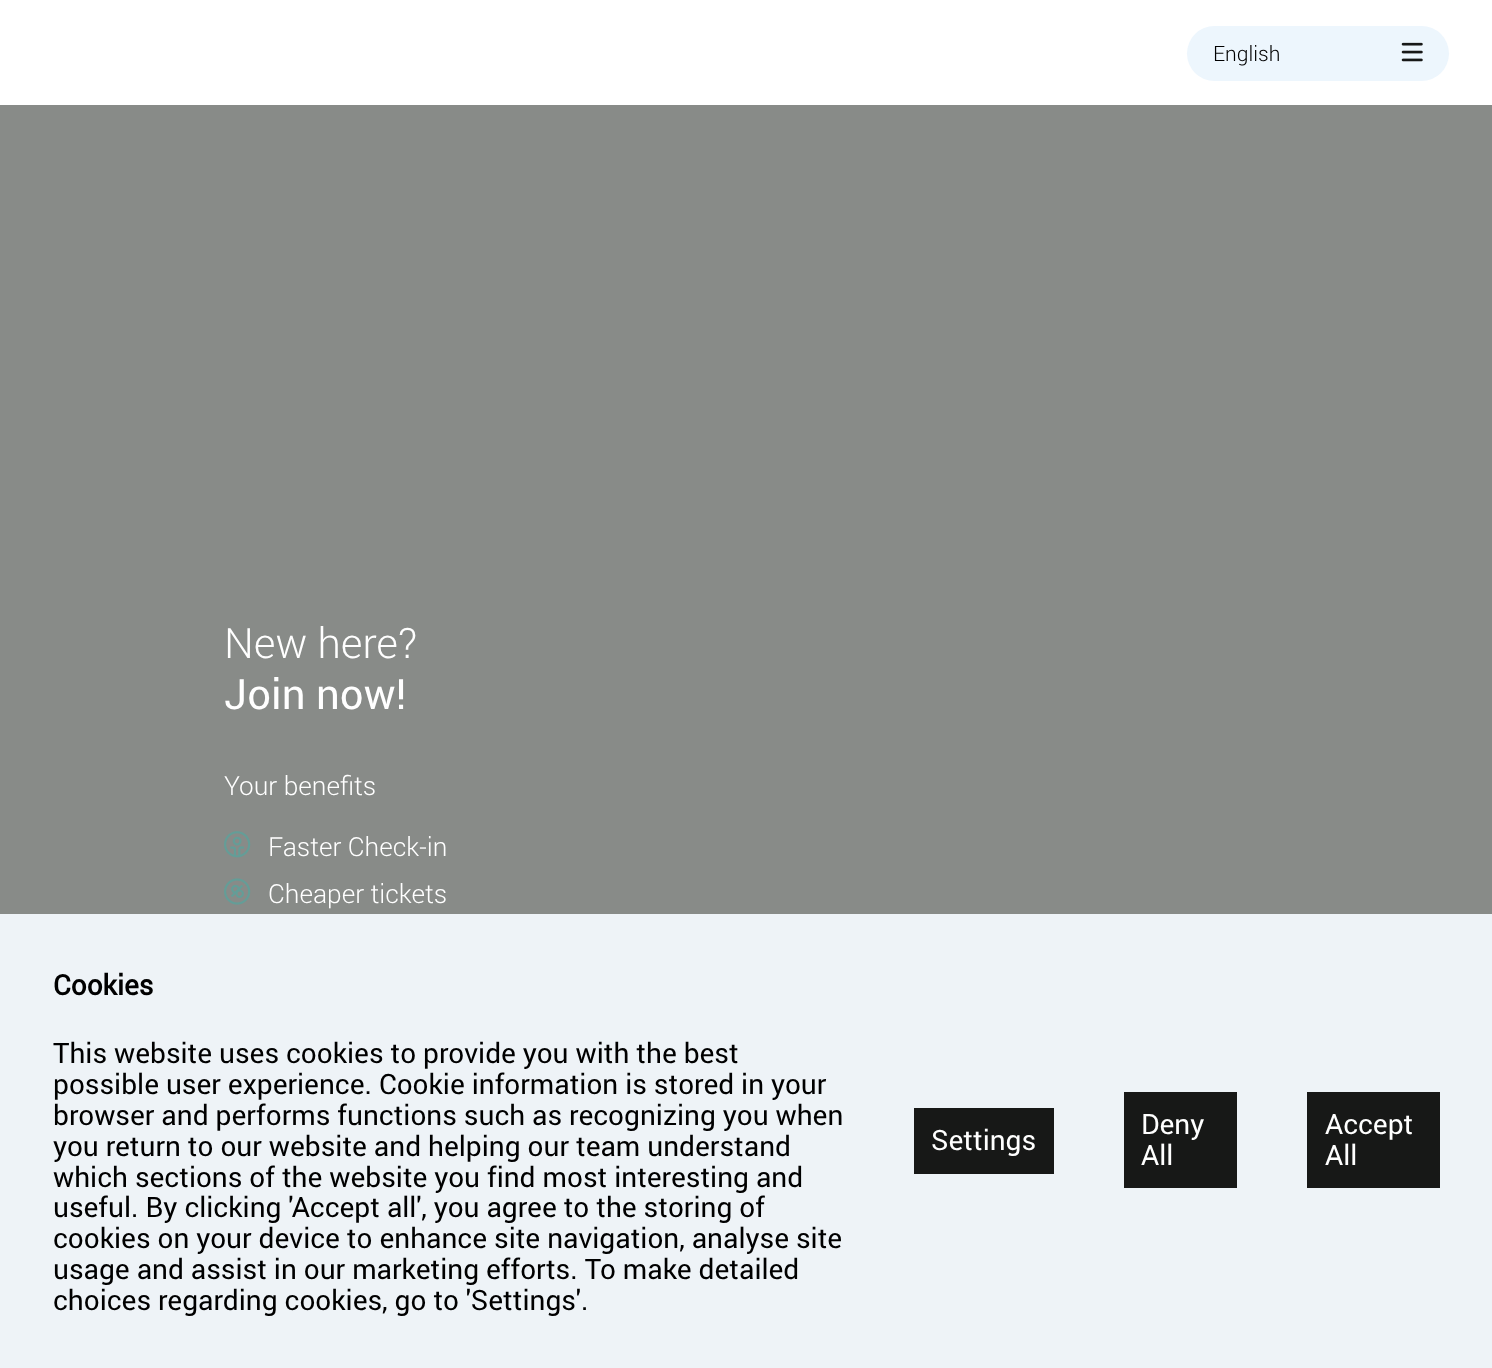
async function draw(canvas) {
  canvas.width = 1492;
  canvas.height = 1368;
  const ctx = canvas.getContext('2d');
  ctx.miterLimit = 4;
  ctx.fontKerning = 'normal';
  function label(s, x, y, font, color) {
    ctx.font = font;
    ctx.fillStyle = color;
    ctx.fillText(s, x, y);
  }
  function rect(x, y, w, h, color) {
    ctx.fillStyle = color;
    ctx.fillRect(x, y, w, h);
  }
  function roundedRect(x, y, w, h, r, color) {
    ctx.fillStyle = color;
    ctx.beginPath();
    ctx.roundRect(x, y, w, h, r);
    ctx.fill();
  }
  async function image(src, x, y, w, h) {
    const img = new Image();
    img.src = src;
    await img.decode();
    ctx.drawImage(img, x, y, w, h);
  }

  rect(0, 0, 1492, 1368, '#fff');
  roundedRect(1187, 26, 262, 55, 27.5, '#edf6fd');
  label('English', 1213, 61, '300 21px Roboto', '#000');
  await image('assets/img1.png', 1401, 42, 22, 20);
  rect(0, 105, 1492, 809, '#888b88');
  label('New here?', 224, 658, '300 42px Roboto', '#fff');
  label('Join now!', 224, 709, '42px roboto', '#fff');
  label('Your benefits', 224, 795, '300 26.25px Roboto', '#fff');
  await image('assets/img2.png', 224, 831, 27, 27);
  label('Faster Check-in', 268, 856, '300 26.25px Roboto', '#fff');
  await image('assets/img3.png', 224, 878, 27, 27);
  label('Cheaper tickets', 268, 903, '300 26.25px Roboto', '#fff');
  rect(0, 914, 1492, 454, '#eef3f7');
  label('Cookies', 53, 995, 'bold 28px roboto', '#000');
  label('This website uses cookies to provide you with the best', 53, 1063, '28px roboto', '#000');
  label('possible user experience. Cookie information is stored in your', 53, 1094, '28px roboto', '#000');
  label('browser and performs functions such as recognizing you when', 53, 1125, '28px roboto', '#000');
  label('you return to our website and helping our team understand', 53, 1156, '28px roboto', '#000');
  label('which sections of the website you find most interesting and', 53, 1187, '28px roboto', '#000');
  label('useful. By clicking \'Accept all\', you agree to the storing of', 53, 1217, '28px roboto', '#000');
  label('cookies on your device to enhance site navigation, analyse site', 53, 1248, '28px roboto', '#000');
  label('usage and assist in our marketing efforts. To make detailed', 53, 1279, '28px roboto', '#000');
  label('choices regarding cookies, go to \'Settings\'.', 53, 1310, '28px roboto', '#000');
  rect(914, 1108, 140, 66, '#171817');
  label('Settings', 931, 1150, '28px roboto', '#fff');
  rect(1124, 1092, 113, 96, '#171817');
  label('Deny', 1141, 1134, '28px roboto', '#fff');
  label('All', 1141, 1165, '28px roboto', '#fff');
  rect(1307, 1092, 133, 96, '#171817');
  label('Accept', 1325, 1134, '28px roboto', '#fff');
  label('All', 1325, 1165, '28px roboto', '#fff');
}

draw(document.querySelector('canvas'));
